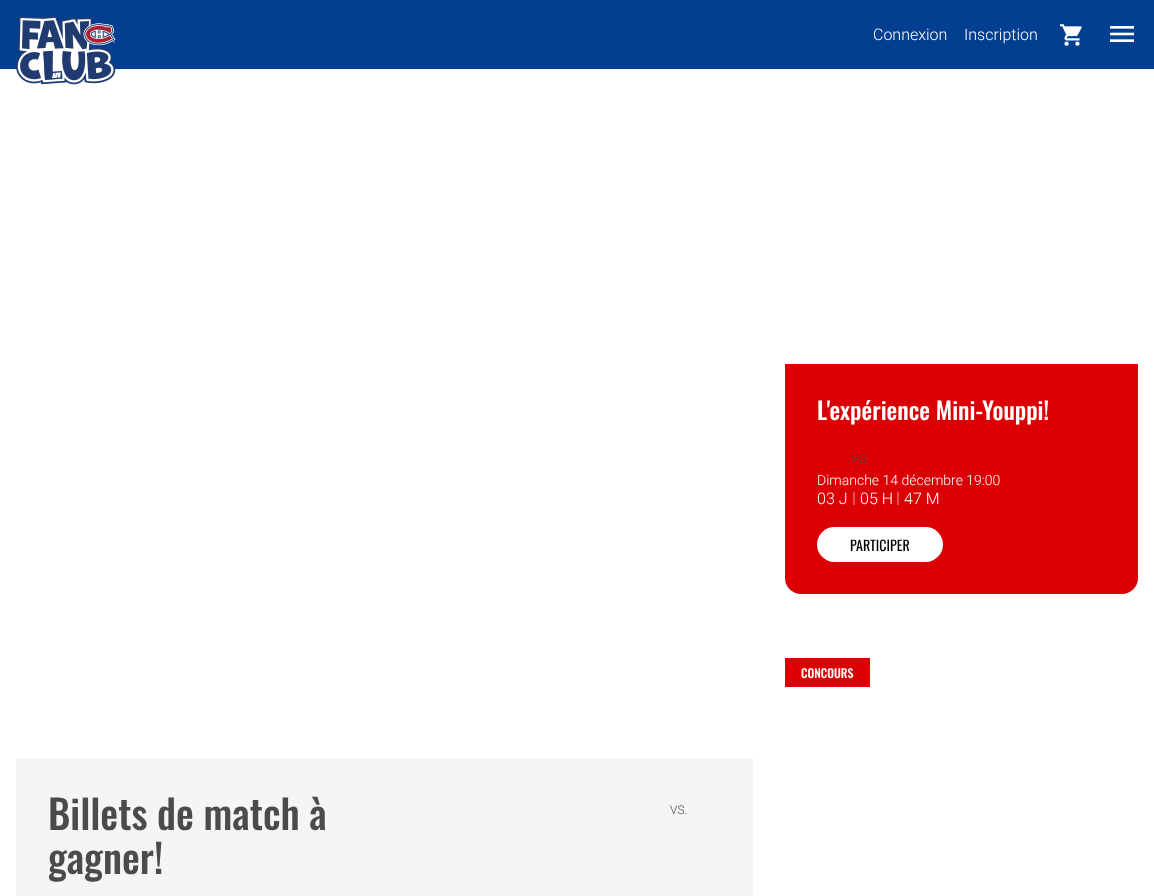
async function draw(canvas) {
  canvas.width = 1154;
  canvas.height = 896;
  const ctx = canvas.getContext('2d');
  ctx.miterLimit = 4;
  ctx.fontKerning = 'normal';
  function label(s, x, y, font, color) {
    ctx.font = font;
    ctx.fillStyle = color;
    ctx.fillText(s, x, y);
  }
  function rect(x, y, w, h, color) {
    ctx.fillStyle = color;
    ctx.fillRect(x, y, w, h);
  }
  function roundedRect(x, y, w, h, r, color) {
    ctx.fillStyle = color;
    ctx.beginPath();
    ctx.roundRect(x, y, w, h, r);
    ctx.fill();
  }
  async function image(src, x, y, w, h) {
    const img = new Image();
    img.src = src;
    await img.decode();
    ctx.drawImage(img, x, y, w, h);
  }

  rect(0, 0, 1154, 896, '#fff');
  rect(0, 0, 1154, 69, '#033f91');
  await image('assets/img1.png', 16, 16, 100, 69);
  label('Connexion', 873, 40, '300 16px Roboto', '#fff');
  label('Inscription', 964, 40, '300 16px Roboto', '#fff');
  await image('assets/img2.png', 1060, 24, 22, 22);
  await image('assets/img3.png', 1110, 26, 24, 16);
  ctx.fillStyle = '#db0004';
  ctx.beginPath();
  ctx.roundRect(785, 364, 353, 230, [0, 0, 16, 16]);
  ctx.fill();
  label('L\'expérience Mini-Youppi!', 817, 420, '500 24px Oswald', '#fff');
  label('VS.', 851, 463, '300 12px Roboto', '#4b4b4b');
  label('Dimanche 14 décembre 19:00', 817, 485, '300 14px Roboto', '#fff');
  label('03 J', 817, 504, '300 16px Roboto', '#fff');
  label('|', 852, 503, '16px Roboto', '#ed8082');
  label('05 H', 860, 504, '300 16px Roboto', '#fff');
  label('|', 896, 503, '16px Roboto', '#ed8082');
  label('47 M', 904, 504, '300 16px Roboto', '#fff');
  roundedRect(817, 527, 126, 35, 17.5, '#fff');
  label('PARTICIPER', 850, 551, '14px Oswald', '#000');
  rect(785, 658, 85, 29, '#db0004');
  label('CONCOURS', 801, 678, '500 12px Oswald', '#fff');
  rect(16, 758, 737, 138, '#f5f5f5');
  label('Billets de match à', 48, 830, '500 40px Oswald', '#4b4b4b');
  label('gagner!', 48, 874, '500 40px Oswald', '#4b4b4b');
  label('VS.', 670, 814, '300 12px Roboto', '#4b4b4b');
}

draw(document.querySelector('canvas'));
